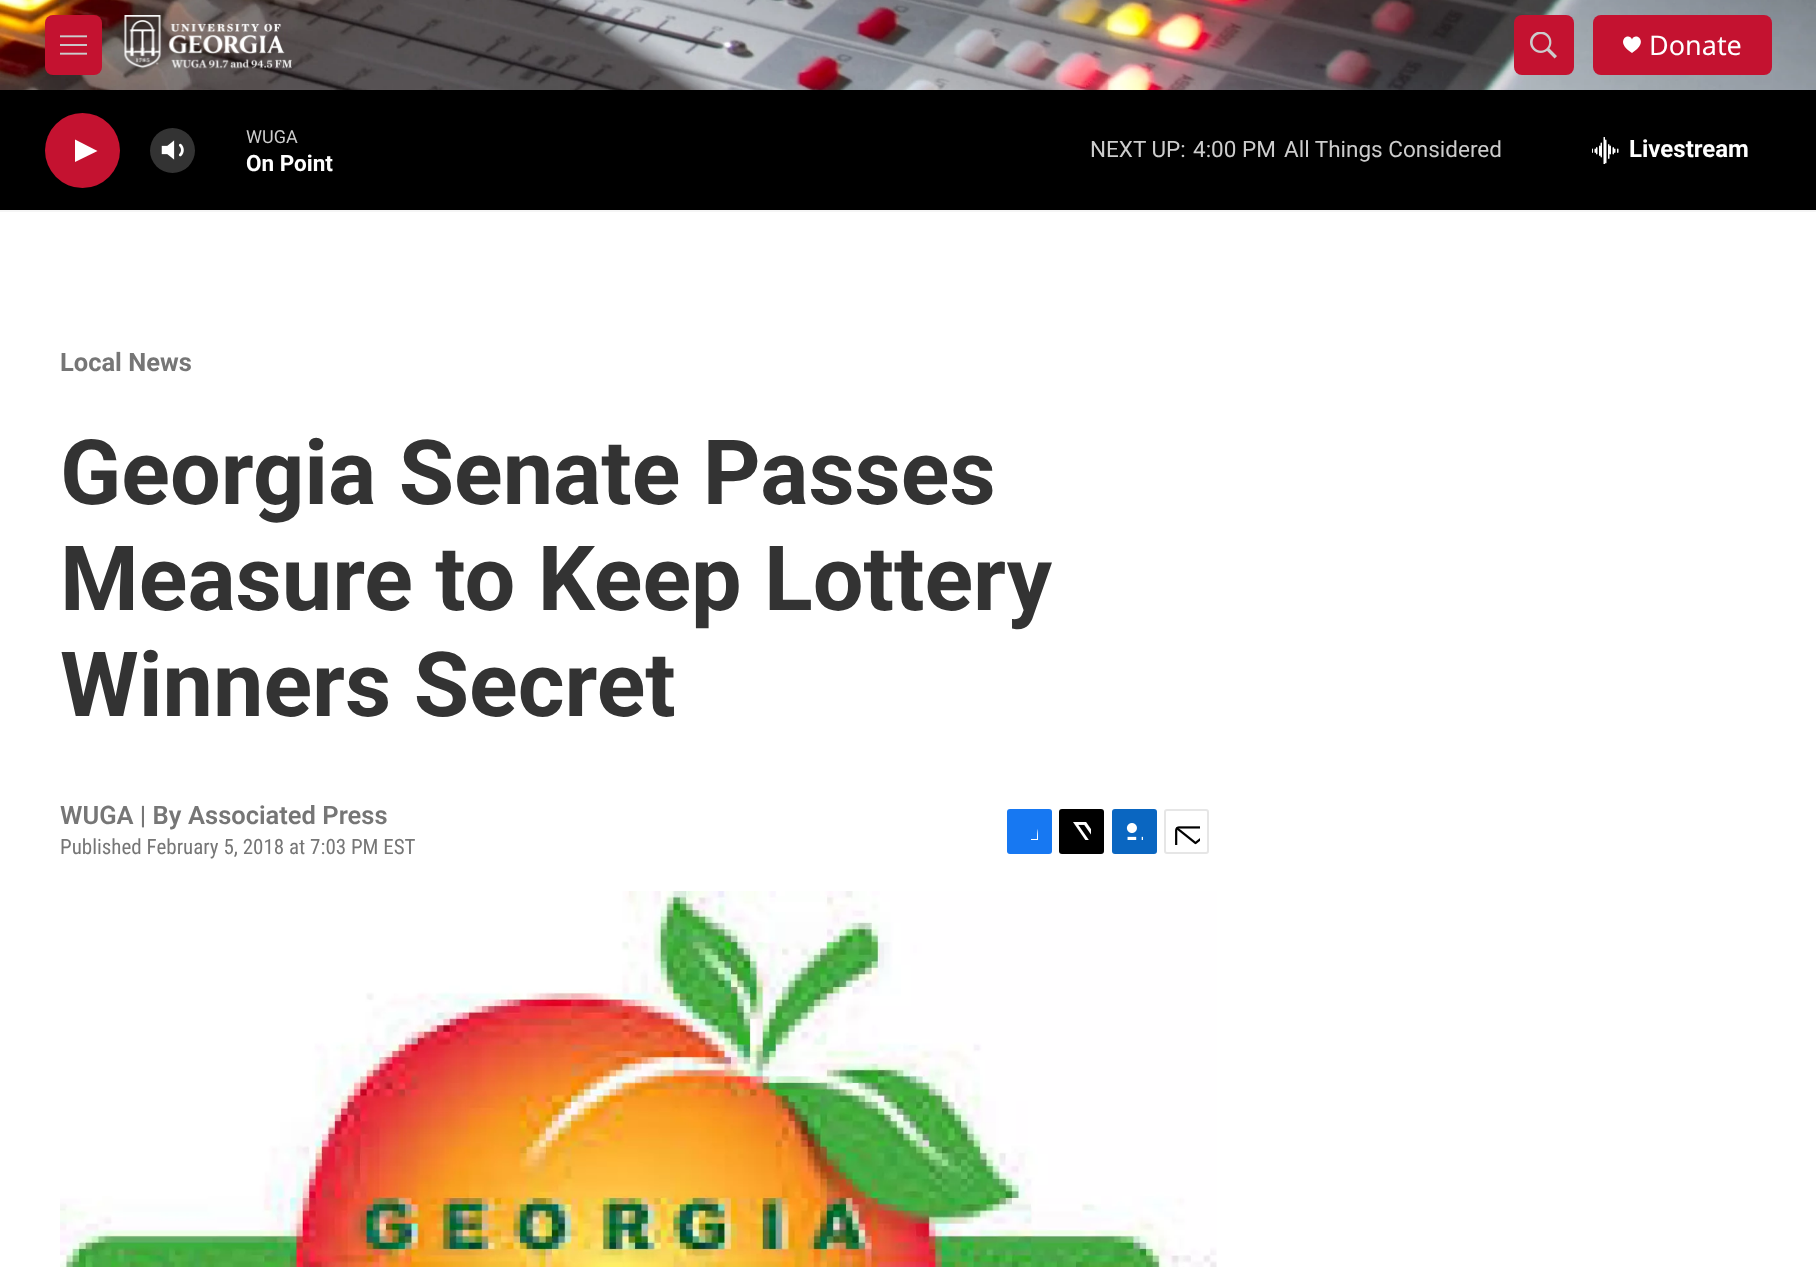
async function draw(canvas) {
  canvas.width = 1816;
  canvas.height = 1267;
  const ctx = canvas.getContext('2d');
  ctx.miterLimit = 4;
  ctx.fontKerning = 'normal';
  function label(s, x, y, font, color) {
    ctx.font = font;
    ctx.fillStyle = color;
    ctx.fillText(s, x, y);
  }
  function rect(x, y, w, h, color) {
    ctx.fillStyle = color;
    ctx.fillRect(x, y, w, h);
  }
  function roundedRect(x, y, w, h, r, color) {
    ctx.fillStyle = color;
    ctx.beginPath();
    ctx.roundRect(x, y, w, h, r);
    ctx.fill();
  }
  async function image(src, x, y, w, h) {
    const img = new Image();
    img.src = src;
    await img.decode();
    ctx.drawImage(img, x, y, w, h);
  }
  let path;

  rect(0, 0, 1816, 1267, '#fff');
  rect(0, 210, 1816, 2, '#f5f5f5');
  await image('assets/img1.png', 0, 0, 1816, 90);
  roundedRect(45, 15, 57, 60, 8, '#c41230');
  await image('assets/img2.png', 60, 35, 27, 20);
  await image('assets/img3.png', 124, 15, 168, 54);
  roundedRect(1514, 15, 60, 60, 8, '#c41230');
  await image('assets/img4.png', 1530, 32, 27, 27);
  roundedRect(1593, 15, 179, 60, 8, '#c41230');
  ctx.fillStyle = '#fff';
  path = new Path2D('M1632 39.5C1629 31.5 1613.5 41.5 1632 53C1650.5 41.5 1635 31.5 1632 39.5Z');
  ctx.fill(path);
  label('Donate', 1649, 55, '27px Noto Sans', '#fff');
  rect(0, 90, 1816, 120, '#000');
  ctx.fillStyle = '#c41230';
  ctx.beginPath();
  ctx.arc(82.5, 150.5, 37.5, 0, 2 * Math.PI);
  ctx.fill();
  ctx.fillStyle = '#fff';
  path = new Path2D('M75 139.5L97.5 151L75 162Z');
  ctx.fill(path);
  await image('assets/img5.png', 161, 140, 23, 20);
  ctx.fillStyle = '#ffffff33';
  ctx.beginPath();
  ctx.arc(172.5, 150.5, 22.5, 0, 2 * Math.PI);
  ctx.fill();
  label('WUGA', 246, 143, '18px Roboto', '#ccc');
  label('On Point', 246, 171, 'bold 22.5px "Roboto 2"', '#fff');
  label('NEXT UP:', 1090, 157, '22.5px Roboto', '#ccc');
  label('4:00 PM', 1193, 157, '22.5px Roboto', '#ccc');
  label('All Things Considered', 1284, 157, '22.5px Roboto', '#ccc');
  await image('assets/img6.png', 1592, 137, 27, 27);
  label('Livestream', 1629, 157, 'bold 24px "Roboto 2"', '#fff');
  label('Local News', 60, 371, 'bold 25.5px Roboto', '#767676');
  label('Georgia Senate Passes', 60, 504, 'bold 90px Roboto', '#333');
  label('Measure to Keep Lottery', 60, 610, 'bold 90px Roboto', '#333');
  label('Winners Secret', 60, 716, 'bold 90px Roboto', '#333');
  label('WUGA | By', 60, 824, '600 25.5px Roboto', '#767676');
  label('Associated Press', 188, 824, '600 25.5px Roboto', '#767676');
  label('Published February 5, 2018 at 7:03 PM EST', 60, 854, '21px Roboto Condensed', '#767676');
  roundedRect(1007, 809, 45, 45, 3, '#1778f2');
  ctx.save();
  ctx.beginPath();
  ctx.rect(1020, 822, 18, 18);
  ctx.clip();
  ctx.fillStyle = '#fff';
  path = new Path2D('M1045 854H1037V846H1031V839H1037C1037 826.5 1039 821 1052 823V830C1043.5 830 1045 831.5 1045 839H1052L1051 846H1045Z');
  ctx.fill(path);
  ctx.restore();
  roundedRect(1059, 809, 45, 45, 3, '#000');
  await image('assets/img7.png', 1073, 822, 18, 18);
  roundedRect(1112, 809, 45, 45, 3, '#0a66c1');
  await image('assets/img8.png', 1126, 823, 17, 17);
  ctx.beginPath();
  ctx.roundRect(1165, 810, 43, 43, 2);
  ctx.strokeStyle = '#e6e6e6';
  ctx.lineWidth = 2;
  ctx.stroke();
  await image('assets/img9.png', 1175, 826, 25, 19);
  await image('assets/img10.png', 60, 891, 1157, 376);
}

draw(document.querySelector('canvas'));
